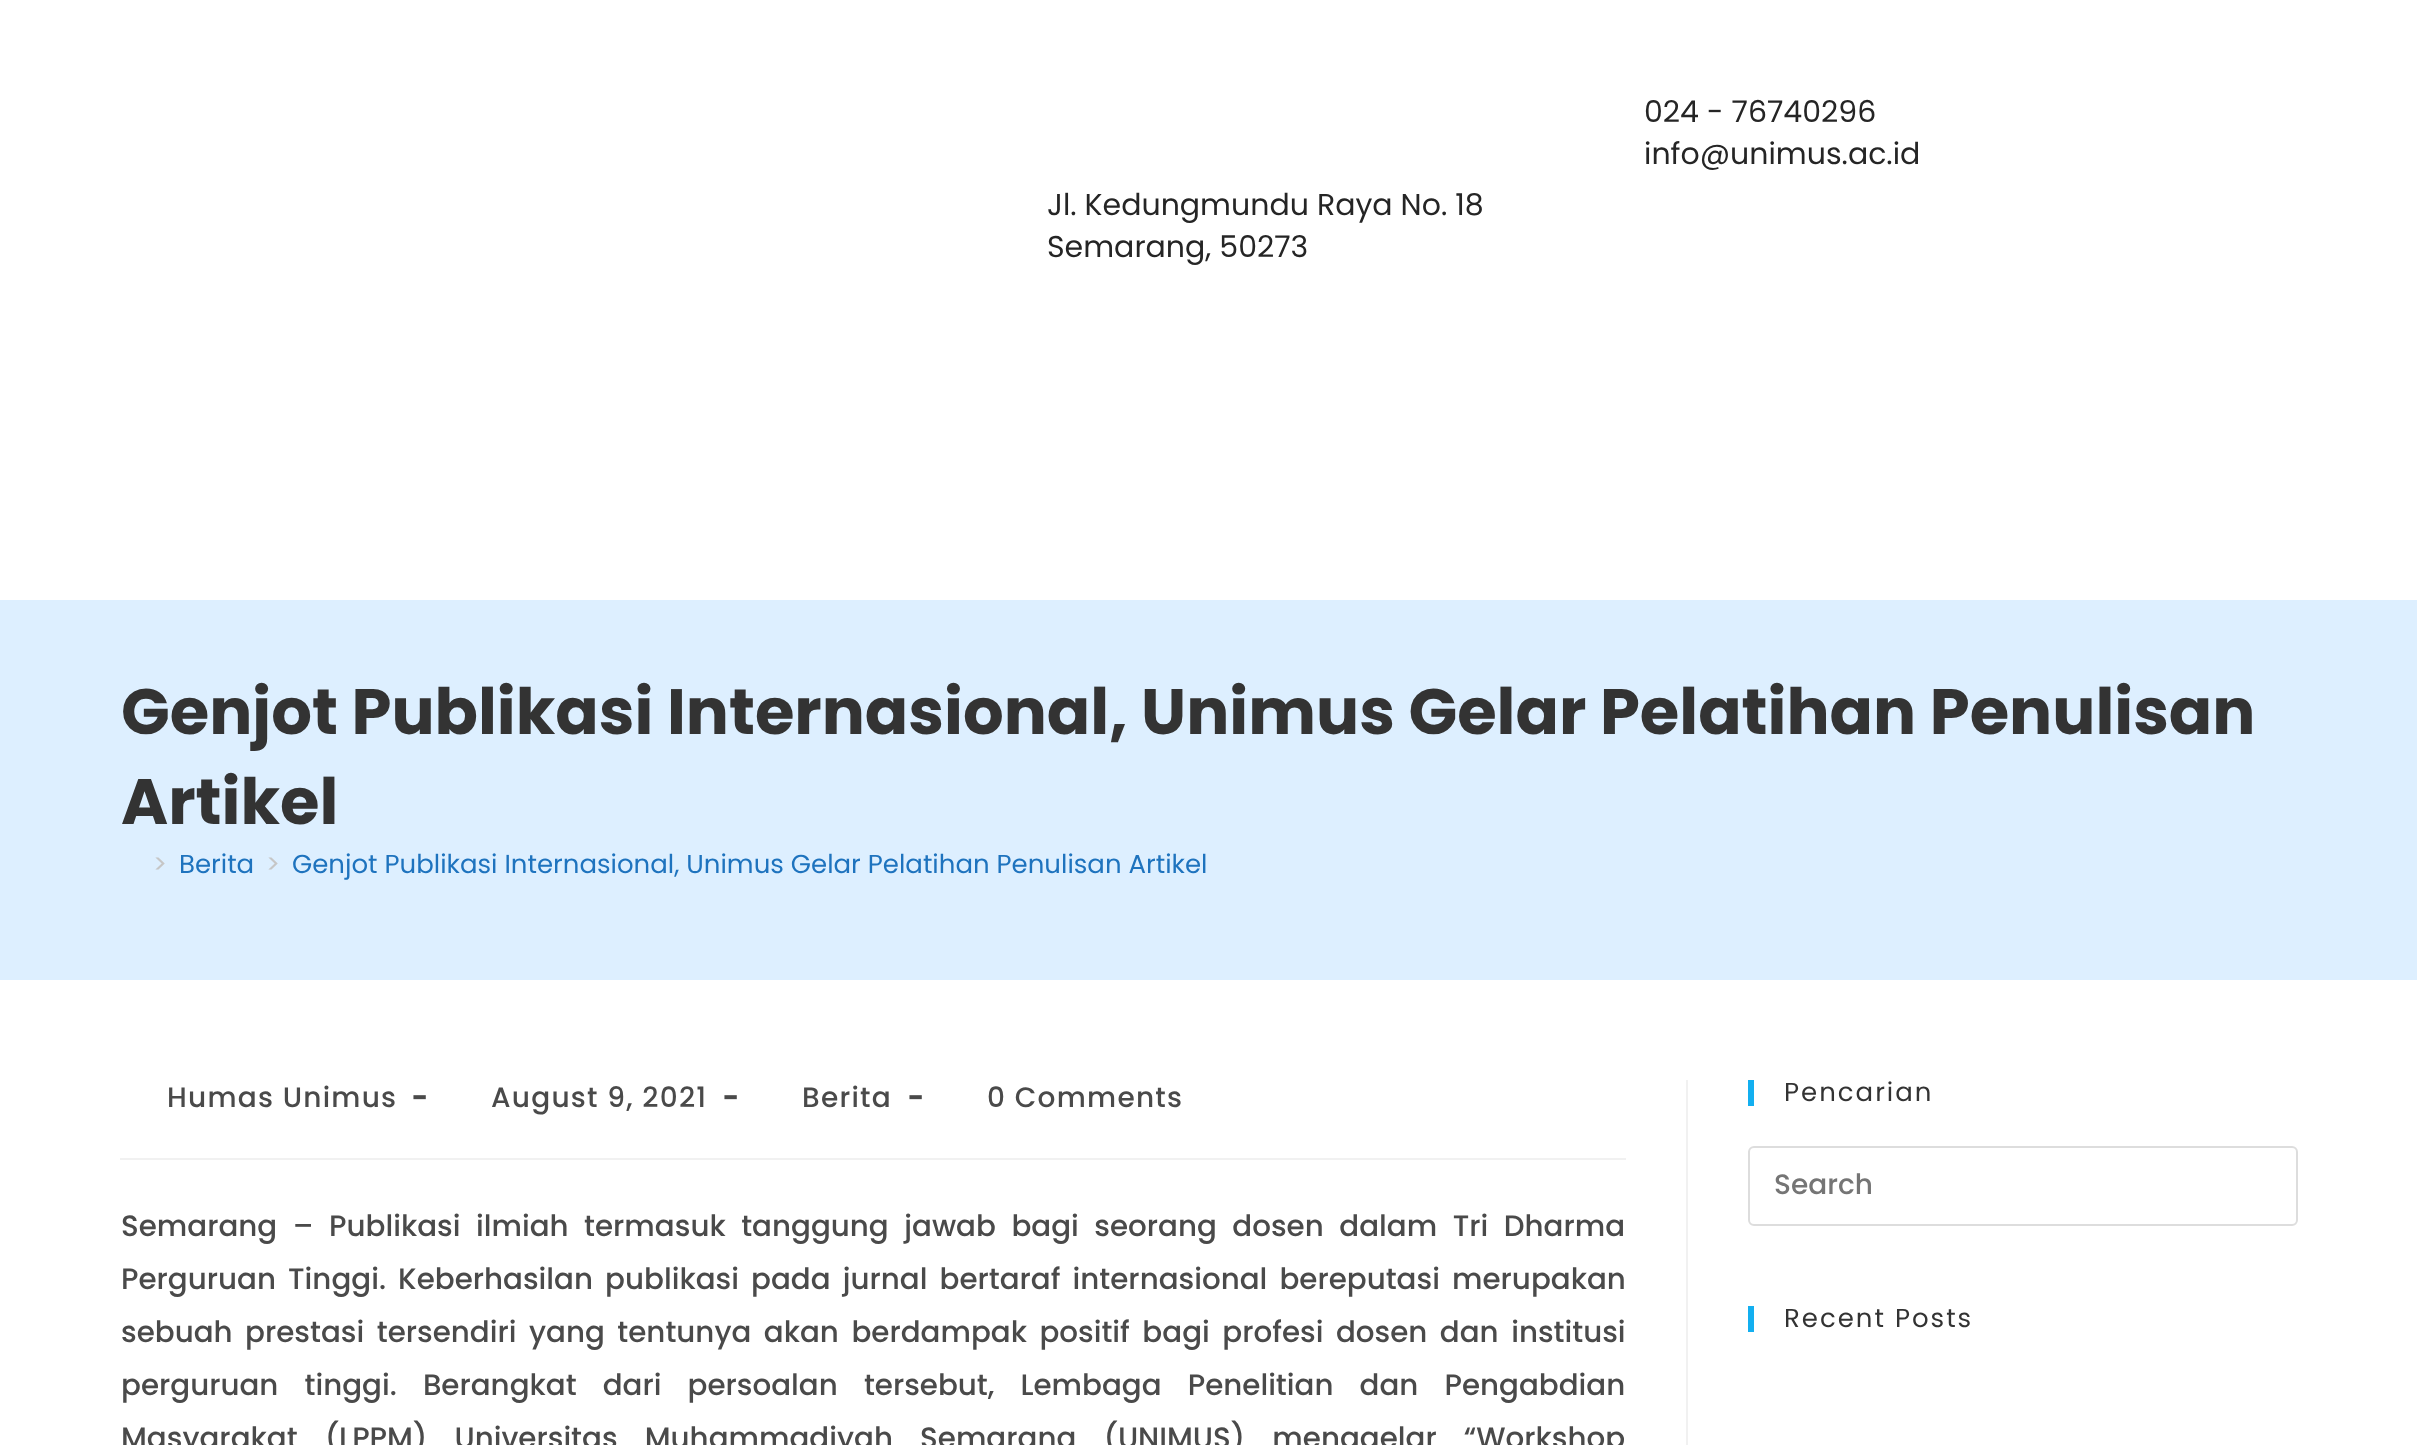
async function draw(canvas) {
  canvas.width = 2417;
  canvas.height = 1445;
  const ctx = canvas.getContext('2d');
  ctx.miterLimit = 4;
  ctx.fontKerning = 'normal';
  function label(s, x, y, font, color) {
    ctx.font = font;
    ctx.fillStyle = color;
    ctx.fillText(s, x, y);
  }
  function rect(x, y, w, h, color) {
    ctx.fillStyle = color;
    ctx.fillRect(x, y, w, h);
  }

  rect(0, 0, 2417, 1445, '#fff');
  label('024 - 76740296', 1644, 122, '30px Poppins', '#252525');
  label('info@unimus.ac.id', 1644, 164, '30px Poppins', '#252525');
  label('Jl. Kedungmundu Raya No. 18', 1047, 215, '30px Poppins', '#252525');
  label('Semarang, 50273', 1047, 257, '30px Poppins', '#252525');
  rect(0, 600, 2417, 380, '#ddefff');
  label('Genjot Publikasi Internasional, Unimus Gelar Pelatihan Penulisan', 121, 734, 'bold 64px Poppins', '#333');
  label('Artikel', 121, 824, 'bold 64px Poppins', '#333');
  label('>', 153, 873, '26px Poppins', '#c6c6c6');
  label('Berita', 179, 873, '26px Poppins', '#1e73be');
  label('>', 266, 873, '26px Poppins', '#c6c6c6');
  label('Genjot Publikasi Internasional, Unimus Gelar Pelatihan Penulisan Artikel', 292, 873, '26px Poppins', '#1e73be');
  rect(1686, 1080, 2, 365, '#f1f1f1');
  rect(120, 1158, 1506, 2, '#f1f1f1');
  ctx.letterSpacing = '1.25px';
  label('Humas Unimus', 167, 1107, '500 28px Poppins', '#4a4a4a');
  label('-', 412, 1107, 'bold 28px Poppins', '#4a4a4a');
  label('August 9, 2021', 491, 1107, '500 28px Poppins', '#4a4a4a');
  label('-', 723, 1107, 'bold 28px Poppins', '#4a4a4a');
  label('Berita', 802, 1107, '500 28px Poppins', '#4a4a4a');
  label('-', 908, 1107, 'bold 28px Poppins', '#4a4a4a');
  label('0 Comments', 987, 1107, '500 28px Poppins', '#4a4a4a');
  ctx.letterSpacing = '0px';
  ctx.wordSpacing = '7.9px';
  label('Semarang – Publikasi ilmiah termasuk tanggung jawab bagi seorang dosen dalam Tri Dharma', 121, 1236, '500 29.33px Poppins', '#4a4a4a');
  ctx.wordSpacing = '4.5px';
  label('Perguruan Tinggi. Keberhasilan publikasi pada jurnal bertaraf internasional bereputasi merupakan', 121, 1289, '500 29.33px Poppins', '#4a4a4a');
  ctx.wordSpacing = '4.9px';
  label('sebuah prestasi tersendiri yang tentunya akan berdampak positif bagi profesi dosen dan institusi', 121, 1342, '500 29.33px Poppins', '#4a4a4a');
  ctx.wordSpacing = '18.5px';
  label('perguruan tinggi. Berangkat dari persoalan tersebut, Lembaga Penelitian dan Pengabdian', 121, 1395, '500 29.33px Poppins', '#4a4a4a');
  ctx.wordSpacing = '19.5px';
  label('Masyarakat (LPPM) Universitas Muhammadiyah Semarang (UNIMUS) menggelar “Workshop', 121, 1448, '500 29.33px Poppins', '#4a4a4a');
  rect(1748, 1080, 6, 26, '#13aff0');
  ctx.letterSpacing = '2px';
  ctx.wordSpacing = '0px';
  label('Pencarian', 1784, 1101, '26px Poppins', '#333');
  ctx.beginPath();
  ctx.roundRect(1749, 1147, 548, 78, 5);
  ctx.strokeStyle = '#ddd';
  ctx.lineWidth = 2;
  ctx.stroke();
  ctx.letterSpacing = '0px';
  label('Search', 1774, 1194, '500 28px Poppins', '#757575');
  rect(1748, 1306, 6, 26, '#13aff0');
  ctx.letterSpacing = '2px';
  label('Recent Posts', 1784, 1327, '26px Poppins', '#333');
}

draw(document.querySelector('canvas'));
